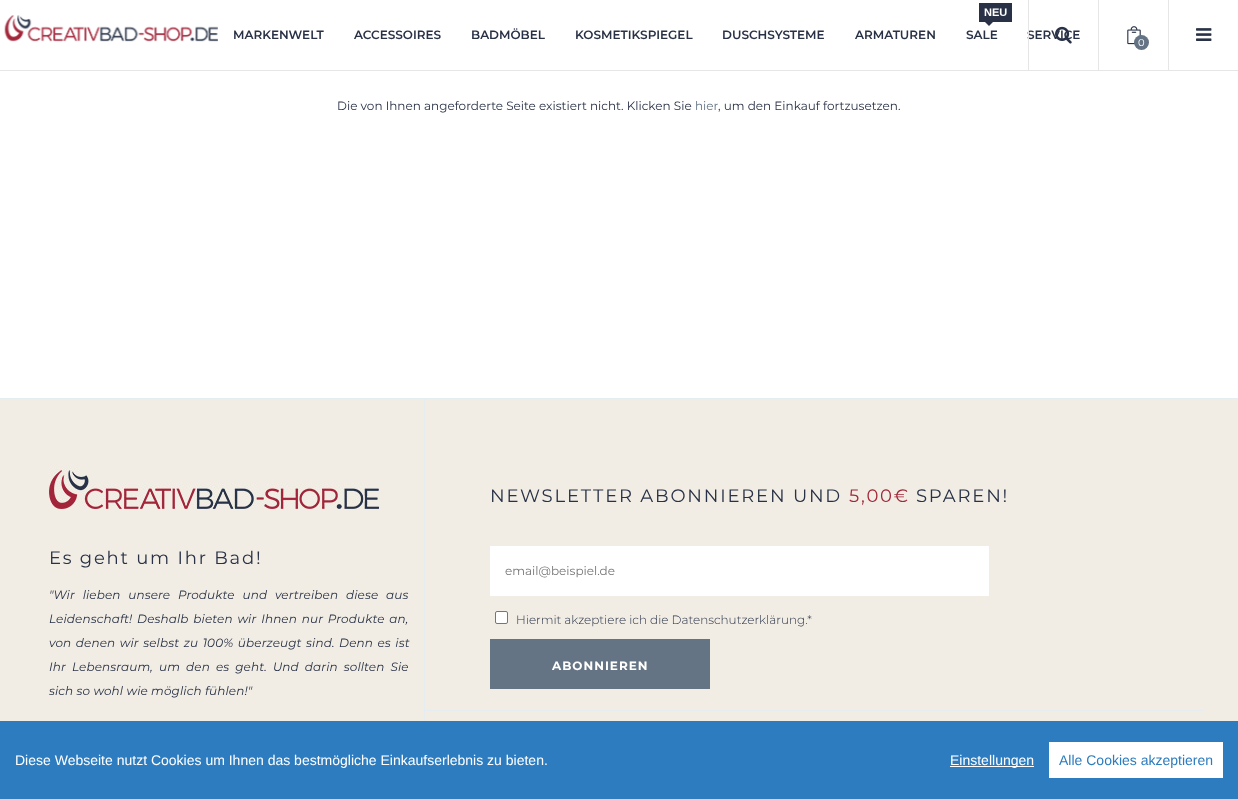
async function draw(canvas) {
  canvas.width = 1238;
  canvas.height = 799;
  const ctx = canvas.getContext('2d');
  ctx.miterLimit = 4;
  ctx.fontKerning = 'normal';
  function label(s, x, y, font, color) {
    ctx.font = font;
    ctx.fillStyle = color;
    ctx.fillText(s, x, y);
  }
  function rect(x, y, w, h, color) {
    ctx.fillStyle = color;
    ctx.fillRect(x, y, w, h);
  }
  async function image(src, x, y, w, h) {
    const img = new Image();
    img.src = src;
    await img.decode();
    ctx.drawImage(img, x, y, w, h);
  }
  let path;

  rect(0, 0, 1238, 799, '#fff');
  rect(0, 70, 1238, 1, '#e6e6e6');
  await image('assets/img1.png', 4, 15, 214, 27);
  label('MARKENWELT', 233, 39, '600 12px Montserrat', '#283146');
  label('ACCESSOIRES', 354, 39, '600 12px Montserrat', '#283146');
  label('BADMÖBEL', 471, 39, '600 12px Montserrat', '#283146');
  label('KOSMETIKSPIEGEL', 575, 39, '600 12px Montserrat', '#283146');
  label('DUSCHSYSTEME', 722, 39, '600 12px Montserrat', '#283146');
  label('ARMATUREN', 855, 39, '600 12px Montserrat', '#283146');
  rect(979, 3, 33, 19, '#283146');
  label('NEU', 984, 16, 'bold 11px Liberation Sans', '#fff');
  ctx.fillStyle = '#283146';
  path = new Path2D('M985 22H993L989 26Z');
  ctx.fill(path);
  label('SALE', 966, 39, '600 12px Montserrat', '#283146');
  label('SERVICE', 1027, 39, '600 12px Montserrat', '#283146');
  rect(1028, 0, 1, 70, '#e6e6e6');
  await image('assets/img2.png', 1055, 26, 17, 18);
  rect(1098, 0, 1, 70, '#e6e6e6');
  await image('assets/img3.png', 1127, 26, 14, 19);
  ctx.fillStyle = '#657485';
  ctx.beginPath();
  ctx.arc(1141.5, 42.5, 7.5, 0, 2 * Math.PI);
  ctx.fill();
  label('0', 1138, 46, '10px Montserrat', '#fff');
  rect(1168, 0, 1, 70, '#e6e6e6');
  await image('assets/img4.png', 1196, 28, 16, 13);
  label('Die von Ihnen angeforderte Seite existiert nicht. Klicken Sie', 337, 110, '12px Montserrat', '#283146');
  label('hier', 695, 110, '12px Montserrat', '#657485');
  label(', um den Einkauf fortzusetzen.', 718, 110, '12px Montserrat', '#283146');
  rect(0, 399, 1238, 322, '#f1ede4');
  rect(0, 398, 1238, 1, '#e5edf0');
  await image('assets/img5.png', 49, 467, 330, 42);
  ctx.letterSpacing = '1.8px';
  label('Es geht um Ihr Bad!', 49, 564, '18px Montserrat', '#283146');
  ctx.letterSpacing = '0.12px';
  ctx.wordSpacing = '4.5px';
  label('"Wir lieben unsere Produkte und vertreiben diese aus', 49, 599, 'italic 12px Montserrat', '#283146');
  ctx.wordSpacing = '1.5px';
  label('Leidenschaft! Deshalb bieten wir Ihnen nur Produkte an,', 49, 623, 'italic 12px Montserrat', '#283146');
  ctx.wordSpacing = '1.25px';
  label('von denen wir selbst zu 100% überzeugt sind. Denn es ist', 49, 647, 'italic 12px Montserrat', '#283146');
  ctx.wordSpacing = '2.75px';
  label('Ihr Lebensraum, um den es geht. Und darin sollten Sie', 49, 671, 'italic 12px Montserrat', '#283146');
  ctx.wordSpacing = '0px';
  label('sich so wohl wie möglich fühlen!"', 49, 695, 'italic 12px Montserrat', '#283146');
  rect(424, 399, 1, 322, '#e5edf0');
  rect(425, 710, 779, 1, '#e5edf0');
  ctx.letterSpacing = '1.8px';
  label('NEWSLETTER ABONNIEREN UND', 490, 502, '18px Montserrat', '#283146');
  label('5,00€', 849, 502, '18px Montserrat', '#a12739');
  label('SPAREN!', 916, 502, '18px Montserrat', '#283146');
  rect(490, 546, 499, 50, '#fff');
  ctx.letterSpacing = '0px';
  label('email@beispiel.de', 505, 575, '12px Montserrat', '#757575');
  ctx.fillStyle = '#fff';
  ctx.beginPath();
  ctx.roundRect(495.5, 611.5, 12, 12, 1.5);
  ctx.fill();
  ctx.strokeStyle = '#767676';
  ctx.stroke();
  label('Hiermit akzeptiere ich die Datenschutzerklärung.*', 516, 624, '300 12px Montserrat', '#283146');
  rect(490, 639, 220, 50, '#657485');
  ctx.letterSpacing = '1px';
  label('ABONNIEREN', 552, 670, 'bold 12px Montserrat', '#fff');
  rect(0, 721, 1238, 78, '#2c7cbf');
  ctx.letterSpacing = '0px';
  label('Diese Webseite nutzt Cookies um Ihnen das bestmögliche Einkaufserlebnis zu bieten.', 15, 765, '14px Liberation Sans', '#fff');
  rect(950, 766, 84, 1, '#fff');
  label('Einstellungen', 950, 765, '14px Liberation Sans', '#fff');
  rect(1049, 742, 174, 36, '#fff');
  label('Alle Cookies akzeptieren', 1059, 765, '14px Liberation Sans', '#2c7cbf');
}

draw(document.querySelector('canvas'));
